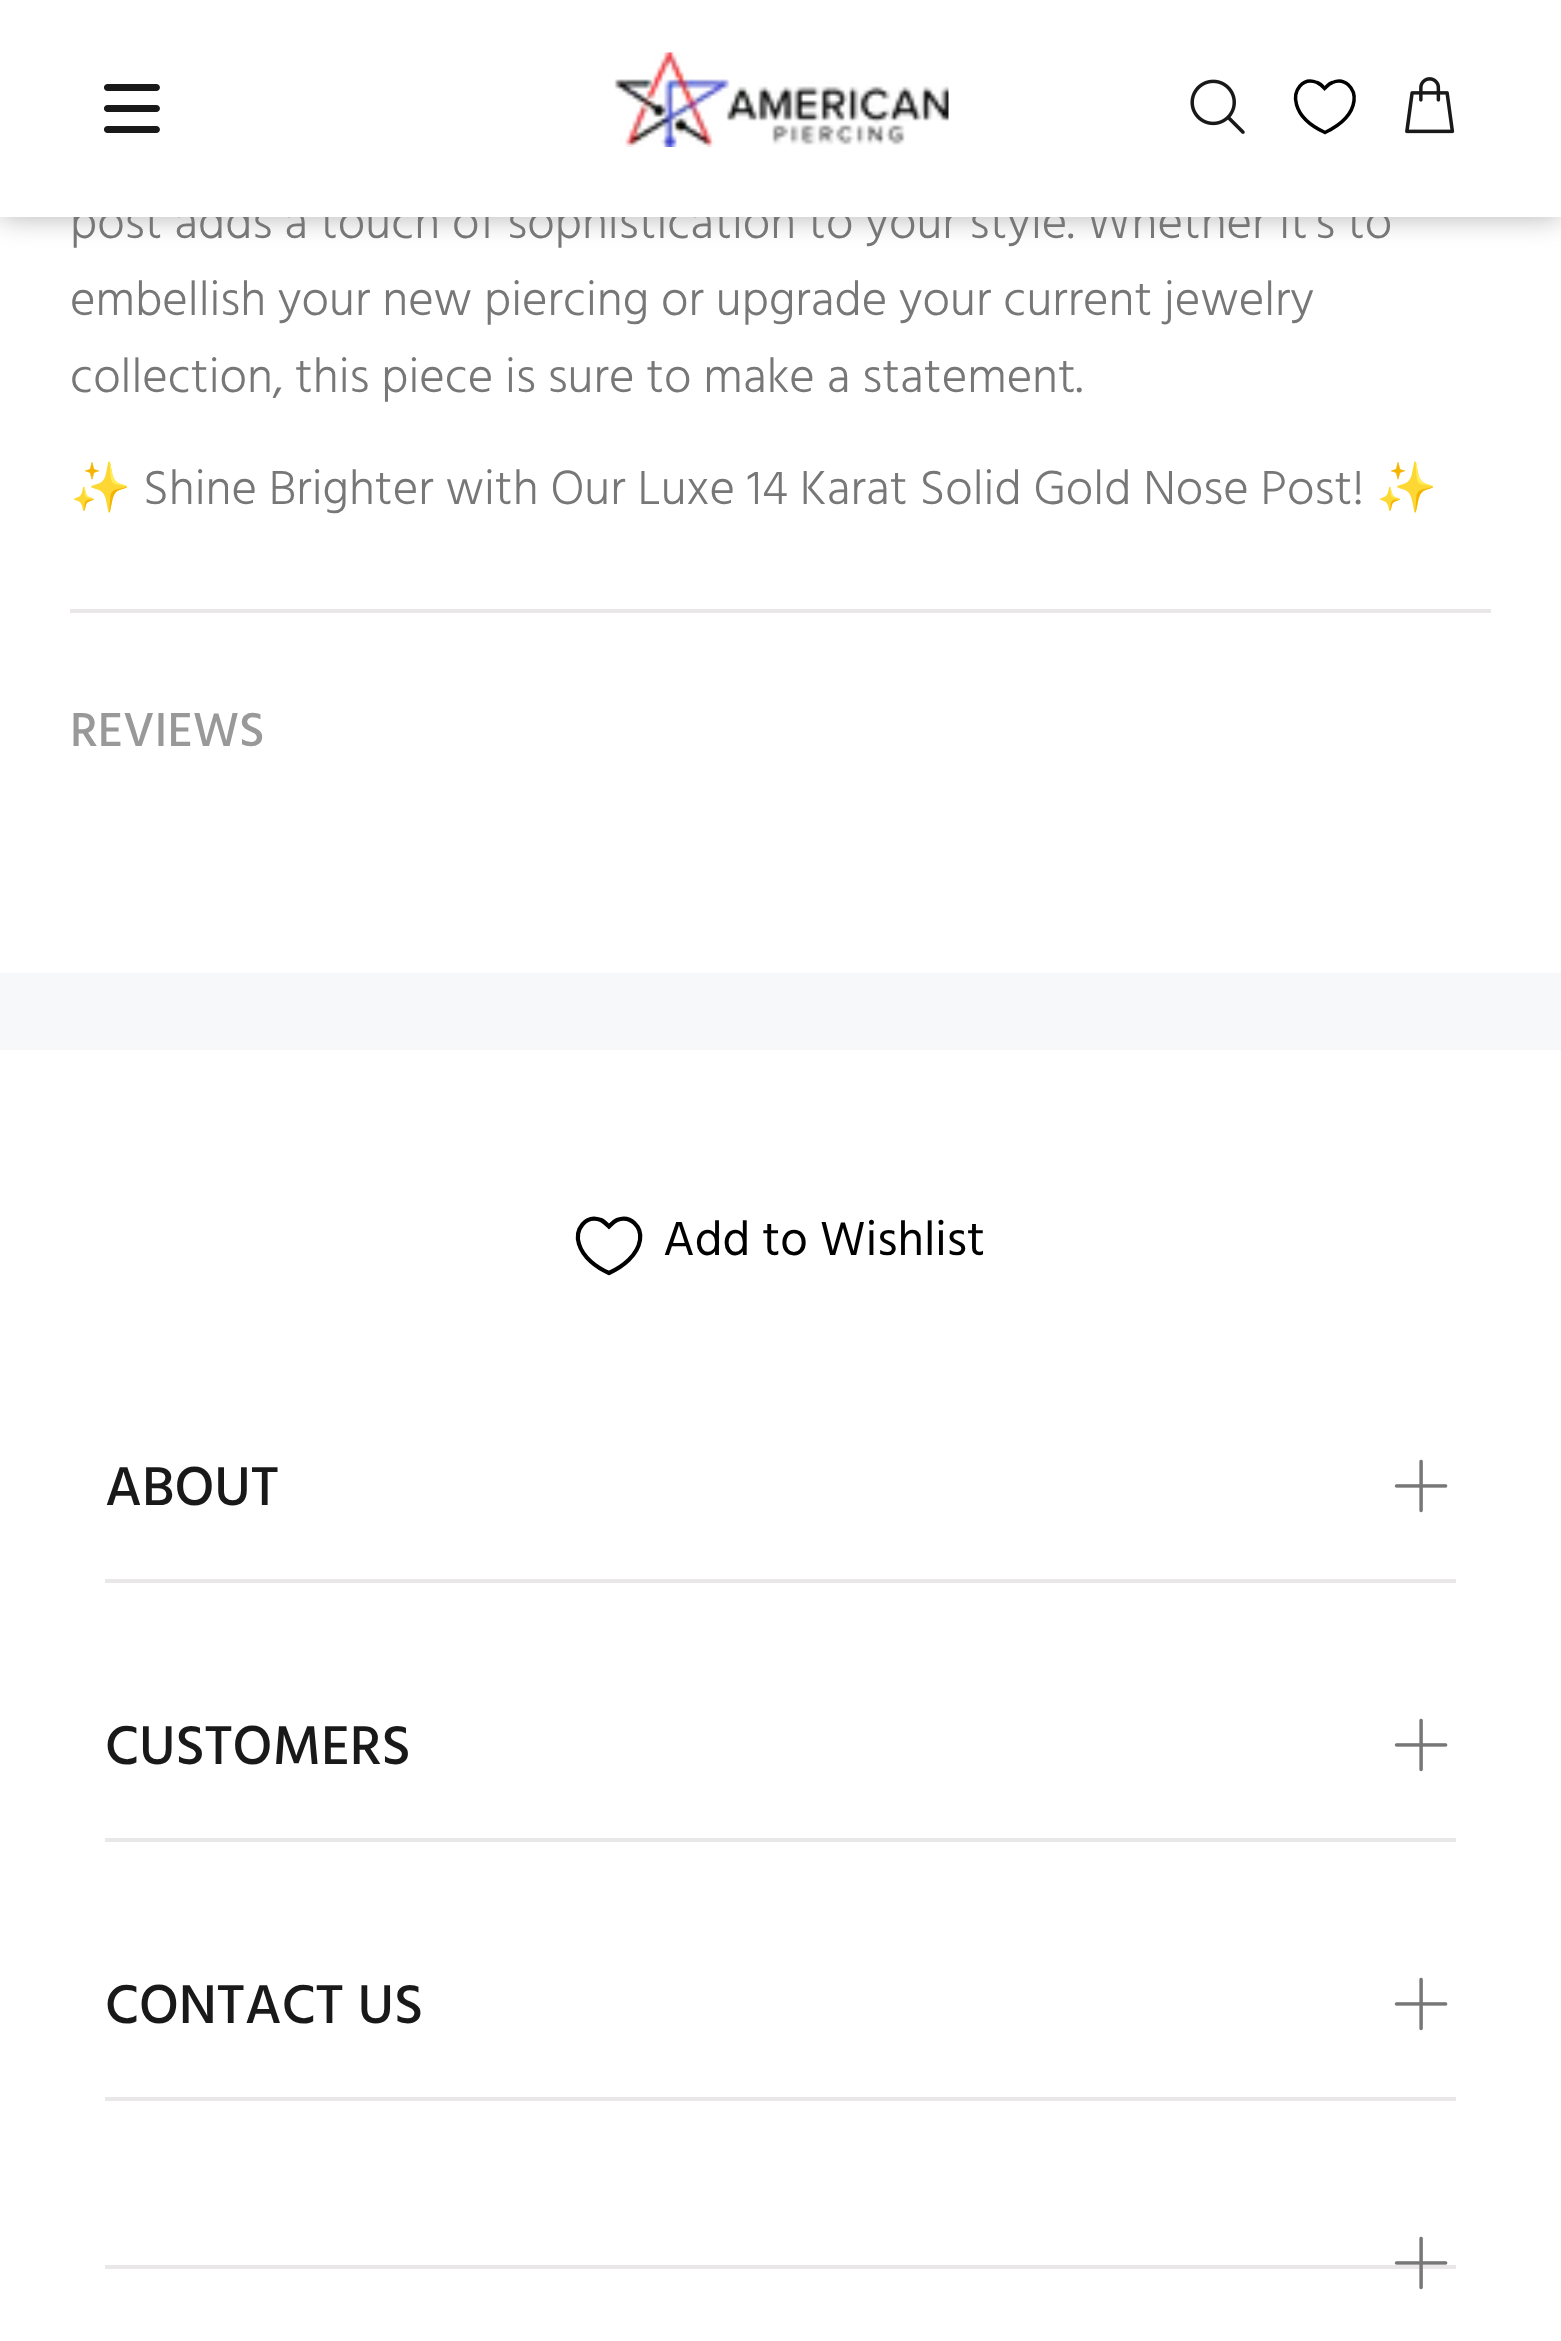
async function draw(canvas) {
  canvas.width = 1561;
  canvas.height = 2341;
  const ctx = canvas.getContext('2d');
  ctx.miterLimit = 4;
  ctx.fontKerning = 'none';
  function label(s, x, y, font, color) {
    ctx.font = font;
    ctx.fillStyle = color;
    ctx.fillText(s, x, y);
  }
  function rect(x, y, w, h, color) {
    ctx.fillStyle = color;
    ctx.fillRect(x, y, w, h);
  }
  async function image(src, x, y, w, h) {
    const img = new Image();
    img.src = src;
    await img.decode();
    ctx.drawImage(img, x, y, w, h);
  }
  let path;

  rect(0, 0, 1561, 2341, '#fff');
  ctx.fillStyle = '#0000004d';
  ctx.filter = 'blur(14px)';
  ctx.beginPath();
  ctx.rect(0, 0, 1561, 217);
  ctx.fill();
  ctx.filter = 'none';
  label('post adds a touch of sophistication to your style. Whether it\'s to', 70, 238, '300 49px Hind', '#777');
  rect(0, 0, 1561, 217, '#fff');
  await image('assets/img1.png', 104, 84, 56, 49);
  await image('assets/img2.png', 614, 52, 335, 95);
  await image('assets/img3.png', 1190, 79, 55, 55);
  path = new Path2D('M1325 132.5C1313 127 1300 117.5 1296.5 104.5C1292.5 91 1302.5 76.5 1317 82.5C1320 83.5 1322.5 86 1324.5 88.5C1327 86 1329 83.5 1332.5 82.5C1345 77 1355.5 88.5 1354 101C1352 116 1337.5 126.5 1325 132.5Z');
  ctx.strokeStyle = '#000';
  ctx.lineWidth = 3.5;
  ctx.stroke(path);
  await image('assets/img4.png', 1405, 77, 50, 57);
  rect(70, 609, 1421, 4, '#e9e7e7');
  label('embellish your new piercing or upgrade your current jewelry', 70, 315, '300 49px Hind', '#777');
  label('collection, this piece is sure to make a statement.', 70, 392, '300 49px Hind', '#777');
  label('✨', 70, 504, '49px Noto Color Emoji', '#777');
  label('Shine Brighter with Our Luxe 14 Karat Solid Gold Nose Post!', 143, 504, '300 49px Hind', '#777');
  label('✨', 1376, 504, '49px Noto Color Emoji', '#777');
  label('REVIEWS', 70, 746, '500 49px Hind', '#999');
  rect(0, 973, 1561, 77, '#f7f8fa');
  path = new Path2D('M609 1273C596.5 1267.5 583 1257.5 579 1244C574.5 1229.5 585.5 1214 601 1220C604 1221.5 606.5 1224 609 1226.5C611.5 1224 613.5 1221.5 617 1220C630.5 1214.5 642 1227 640 1240C637.5 1255.5 622.5 1267 609 1273Z');
  ctx.lineWidth = 4.2;
  ctx.stroke(path);
  label('Add to Wishlist', 663, 1255, '49px Hind', '#000');
  rect(105, 1579, 1351, 4, '#e9e7e7');
  label('ABOUT', 105, 1505, '500 56px Hind', '#191919');
  await image('assets/img5.png', 1394, 1459, 54, 54);
  rect(105, 1838, 1351, 4, '#e9e7e7');
  label('CUSTOMERS', 105, 1764, '500 56px Hind', '#191919');
  await image('assets/img5.png', 1394, 1718, 54, 54);
  rect(105, 2097, 1351, 4, '#e9e7e7');
  label('CONTACT US', 105, 2023, '500 56px Hind', '#191919');
  await image('assets/img5.png', 1394, 1977, 54, 54);
  rect(105, 2265, 1351, 4, '#e9e7e7');
  await image('assets/img6.png', 1394, 2236, 54, 54);
}

draw(document.querySelector('canvas'));
